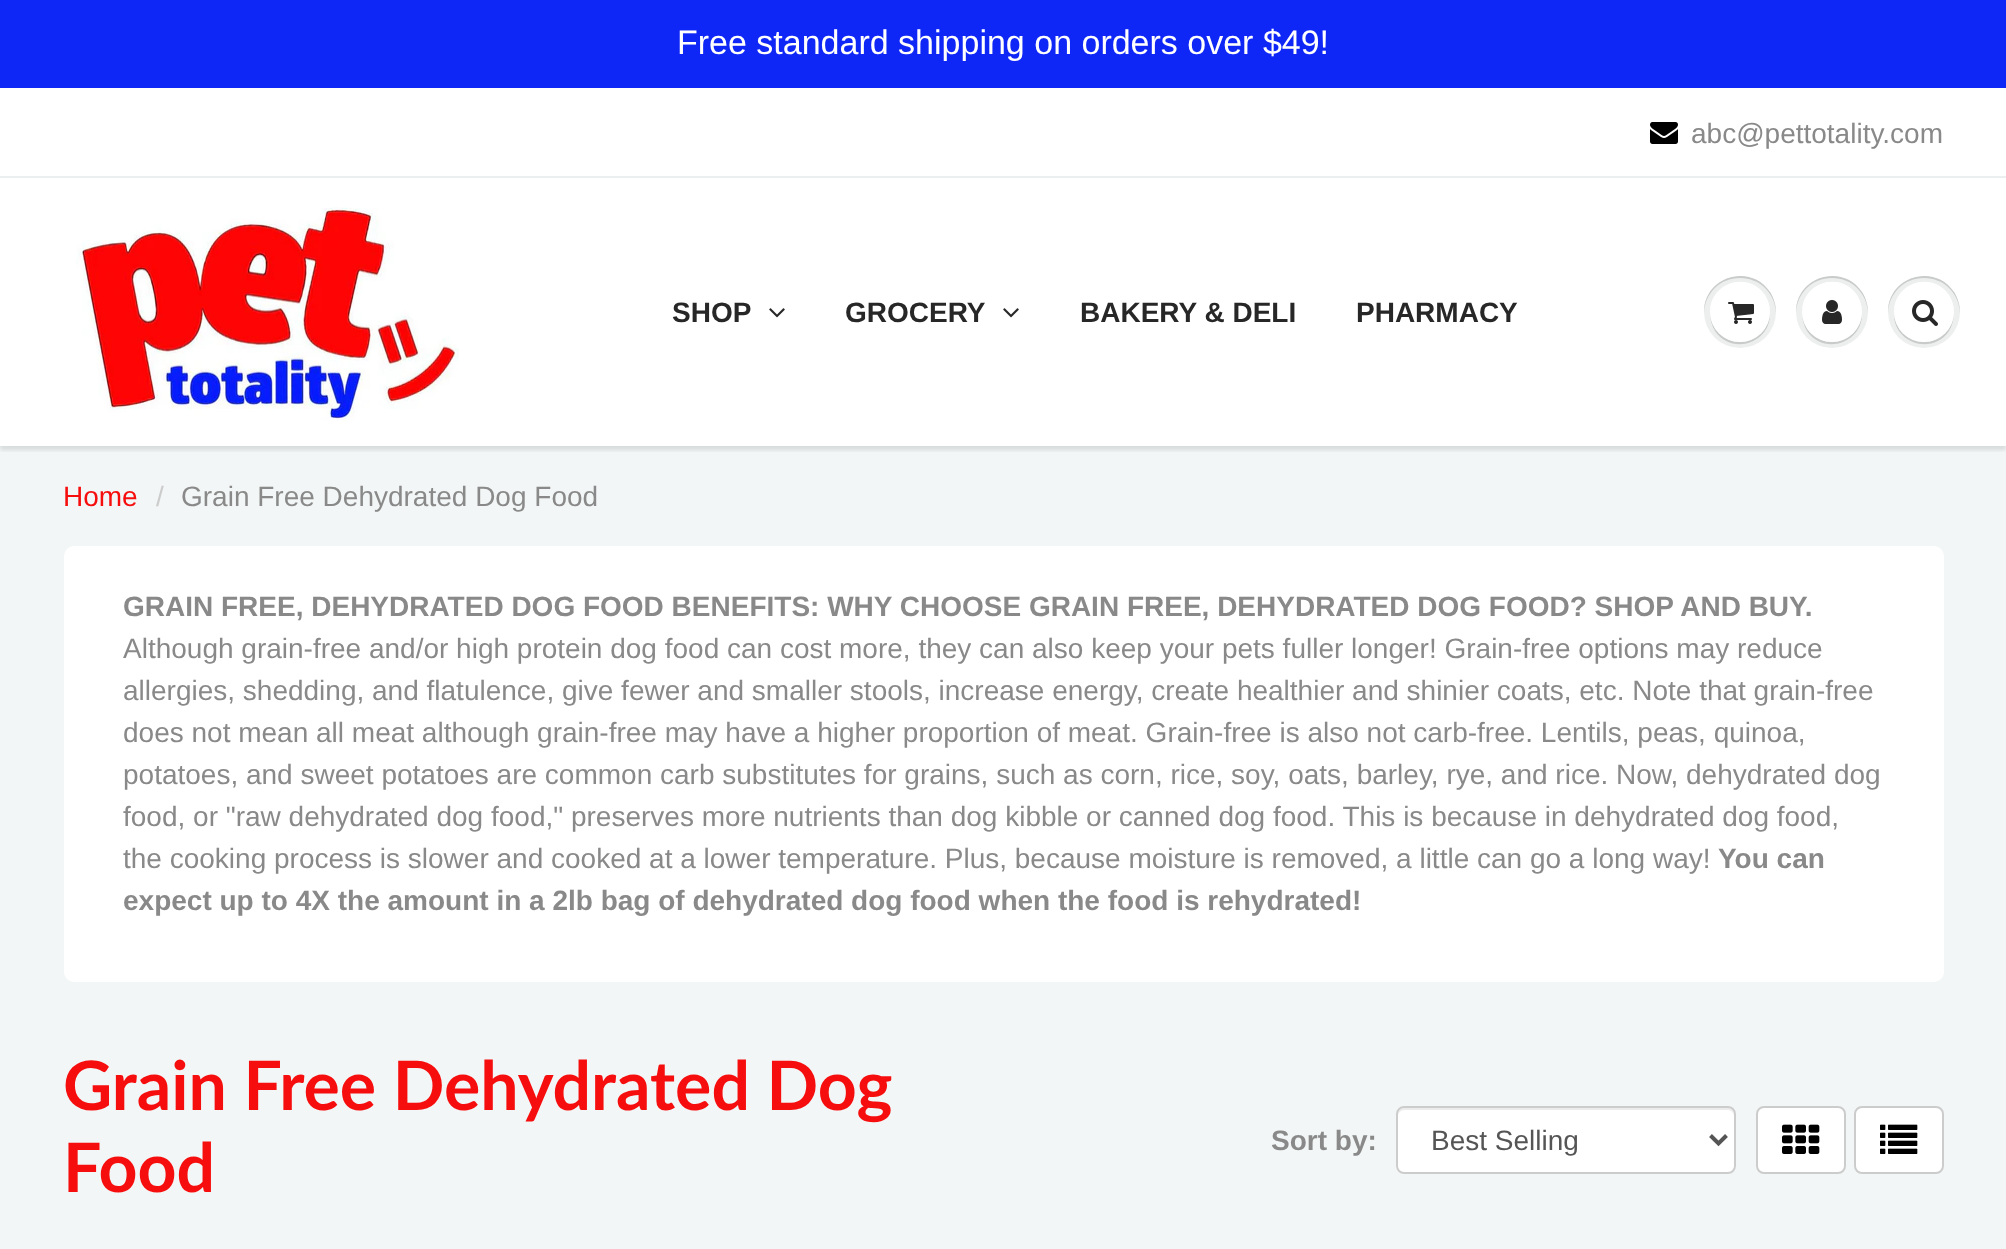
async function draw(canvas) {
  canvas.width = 2006;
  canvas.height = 1249;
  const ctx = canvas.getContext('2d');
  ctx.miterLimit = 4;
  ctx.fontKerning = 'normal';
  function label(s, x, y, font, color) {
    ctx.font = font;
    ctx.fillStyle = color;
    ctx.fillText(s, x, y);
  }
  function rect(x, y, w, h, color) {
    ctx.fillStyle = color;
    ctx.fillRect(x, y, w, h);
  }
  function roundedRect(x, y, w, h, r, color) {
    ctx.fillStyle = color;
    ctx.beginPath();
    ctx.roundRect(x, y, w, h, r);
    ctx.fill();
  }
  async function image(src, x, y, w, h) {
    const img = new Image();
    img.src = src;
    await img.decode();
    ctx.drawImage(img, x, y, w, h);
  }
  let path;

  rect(0, 0, 2006, 1249, '#fff');
  rect(0, 0, 2006, 88, '#0e26f6');
  label('Free standard shipping on orders over $49!', 677, 54, '34px Liberation Sans', '#fff');
  await image('assets/img1.png', 1650, 122, 28, 22);
  label('abc@pettotality.com', 1691, 143, '28px Liberation Sans', '#898989');
  rect(0, 446, 2006, 803, '#f3f6f6');
  ctx.save();
  ctx.beginPath();
  ctx.rect(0, 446, 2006, 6);
  ctx.clip();
  ctx.fillStyle = '#0b191c1f';
  ctx.filter = 'blur(2px)';
  ctx.beginPath();
  ctx.rect(0, 180, 2006, 270);
  ctx.fill();
  ctx.filter = 'none';
  ctx.restore();
  rect(0, 176, 2006, 2, '#ecefef');
  await image('assets/img2.png', 76, 207, 383, 214);
  label('SHOP', 672, 322, 'bold 28px Liberation Sans', '#282727');
  await image('assets/img3.png', 769, 308, 16, 10);
  label('GROCERY', 845, 322, 'bold 28px Liberation Sans', '#282727');
  await image('assets/img3.png', 1003, 308, 16, 10);
  label('BAKERY & DELI', 1080, 322, 'bold 28px Liberation Sans', '#282727');
  label('PHARMACY', 1356, 322, 'bold 28px Liberation Sans', '#282727');
  ctx.fillStyle = '#edefef';
  ctx.beginPath();
  ctx.arc(1740, 312, 36, 0, 2 * Math.PI);
  ctx.fill();
  ctx.fillStyle = '#c9cbcb';
  path = new Path2D('M1770 313C1769 329 1756 342 1740 342C1724 342 1711 329 1710 313C1710 319 1712 326 1715 331C1732 356 1771 343 1770 313Z');
  ctx.fill(path);
  path = new Path2D('M1740 278C1760 278 1775 293 1776 313C1776 306 1774 298 1770 292C1750 262 1703 277 1704 313C1705 293 1720 278 1740 278Z');
  ctx.fill(path);
  ctx.fillStyle = '#fff';
  ctx.beginPath();
  ctx.arc(1740, 312, 30, 0, 2 * Math.PI);
  ctx.fill();
  path = new Path2D('M1740 284C1757 284 1769 296 1770 313C1770 307 1768 300 1765 295C1748 270 1709 283 1710 313C1711 296 1723 284 1740 284Z');
  ctx.fill(path);
  await image('assets/img4.png', 1728, 302, 26, 22);
  ctx.fillStyle = '#edefef';
  ctx.beginPath();
  ctx.arc(1832, 312, 36, 0, 2 * Math.PI);
  ctx.fill();
  ctx.fillStyle = '#c9cbcb';
  path = new Path2D('M1862 313C1861 329 1848 342 1832 342C1816 342 1803 329 1802 313C1802 319 1804 326 1807 331C1824 356 1863 343 1862 313Z');
  ctx.fill(path);
  path = new Path2D('M1832 278C1852 278 1867 293 1868 313C1868 306 1866 298 1862 292C1842 262 1795 277 1796 313C1797 293 1812 278 1832 278Z');
  ctx.fill(path);
  ctx.fillStyle = '#fff';
  ctx.beginPath();
  ctx.arc(1832, 312, 30, 0, 2 * Math.PI);
  ctx.fill();
  path = new Path2D('M1832 284C1849 284 1861 296 1862 313C1862 307 1860 300 1857 295C1840 270 1801 283 1802 313C1803 296 1815 284 1832 284Z');
  ctx.fill(path);
  await image('assets/img5.png', 1822, 300, 20, 24);
  ctx.fillStyle = '#edefef';
  ctx.beginPath();
  ctx.arc(1924, 312, 36, 0, 2 * Math.PI);
  ctx.fill();
  ctx.fillStyle = '#c9cbcb';
  path = new Path2D('M1954 313C1953 329 1940 342 1924 342C1908 342 1895 329 1894 313C1893 343 1932 356 1949 331C1952 326 1954 319 1954 313Z');
  ctx.fill(path);
  path = new Path2D('M1924 278C1944 278 1959 293 1960 313C1960 306 1958 298 1954 292C1934 262 1887 277 1888 313C1889 293 1904 278 1924 278Z');
  ctx.fill(path);
  ctx.fillStyle = '#fff';
  ctx.beginPath();
  ctx.arc(1924, 312, 30, 0, 2 * Math.PI);
  ctx.fill();
  path = new Path2D('M1924 284C1941 284 1953 296 1954 313C1954 307 1952 300 1949 295C1932 270 1893 283 1894 313C1895 296 1907 284 1924 284Z');
  ctx.fill(path);
  await image('assets/img6.png', 1912, 300, 26, 26);
  label('Home', 63, 506, '28px Liberation Sans', '#f60e0e');
  label('/', 156, 506, '28px Liberation Sans', '#ccc');
  label('Grain Free Dehydrated Dog Food', 181, 506, '28px Liberation Sans', '#898989');
  ctx.beginPath();
  ctx.roundRect(69, 551, 1870, 426, 5);
  ctx.strokeStyle = '#fff';
  ctx.lineWidth = 10;
  ctx.stroke();
  rect(74, 556, 1860, 416, '#fff');
  label('GRAIN FREE, DEHYDRATED DOG FOOD BENEFITS: WHY CHOOSE GRAIN FREE, DEHYDRATED DOG FOOD? SHOP AND BUY.', 123, 616, 'bold 28px Liberation Sans', '#898989');
  label('Although grain-free and/or high protein dog food can cost more, they can also keep your pets fuller longer! Grain-free options may reduce', 123, 658, '28px Liberation Sans', '#898989');
  label('allergies, shedding, and flatulence, give fewer and smaller stools, increase energy, create healthier and shinier coats, etc. Note that grain-free', 123, 700, '28px Liberation Sans', '#898989');
  label('does not mean all meat although grain-free may have a higher proportion of meat. Grain-free is also not carb-free. Lentils, peas, quinoa,', 123, 742, '28px Liberation Sans', '#898989');
  label('potatoes, and sweet potatoes are common carb substitutes for grains, such as corn, rice, soy, oats, barley, rye, and rice. Now, dehydrated dog', 123, 784, '28px Liberation Sans', '#898989');
  label('food, or "raw dehydrated dog food," preserves more nutrients than dog kibble or canned dog food. This is because in dehydrated dog food,', 123, 826, '28px Liberation Sans', '#898989');
  label('the cooking process is slower and cooked at a lower temperature. Plus, because moisture is removed, a little can go a long way!', 123, 868, '28px Liberation Sans', '#898989');
  label('You can', 1718, 868, 'bold 28px Liberation Sans', '#898989');
  label('expect up to 4X the amount in a 2lb bag of dehydrated dog food when the food is rehydrated!', 123, 910, 'bold 28px Liberation Sans', '#898989');
  label('Grain Free Dehydrated Dog', 63, 1110, 'bold 68px Lato', '#f60e0e');
  label('Food', 63, 1192, 'bold 68px Lato', '#f60e0e');
  label('Sort by:', 1271, 1150, 'bold 28px Liberation Sans', '#898989');
  roundedRect(1396, 1106, 340, 68, 8, '#fff');
  ctx.fillStyle = '#ececec';
  path = new Path2D('M1404 1110H1728C1731 1110 1734 1113 1734 1116V1114C1734 1111 1731 1108 1728 1108H1404C1401 1108 1398 1111 1398 1114V1116C1398 1113 1401 1110 1404 1110Z');
  ctx.fill(path);
  ctx.beginPath();
  ctx.roundRect(1397, 1107, 338, 66, 7);
  ctx.strokeStyle = '#ccc';
  ctx.lineWidth = 2;
  ctx.stroke();
  path = new Path2D('M1710.5 1135.5L1718.5 1143.5L1726.5 1135.5');
  ctx.strokeStyle = '#555';
  ctx.lineWidth = 4;
  ctx.stroke(path);
  label('Best Selling', 1431, 1150, '28px Liberation Sans', '#555');
  ctx.fillStyle = '#fff';
  ctx.beginPath();
  ctx.roundRect(1757, 1107, 88, 66, 7);
  ctx.fill();
  ctx.strokeStyle = '#ccc';
  ctx.lineWidth = 2;
  ctx.stroke();
  await image('assets/img7.png', 1782, 1124, 38, 30);
  ctx.beginPath();
  ctx.roundRect(1855, 1107, 88, 66, 7);
  ctx.fill();
  ctx.stroke();
  await image('assets/img8.png', 1880, 1124, 38, 30);
}

draw(document.querySelector('canvas'));
